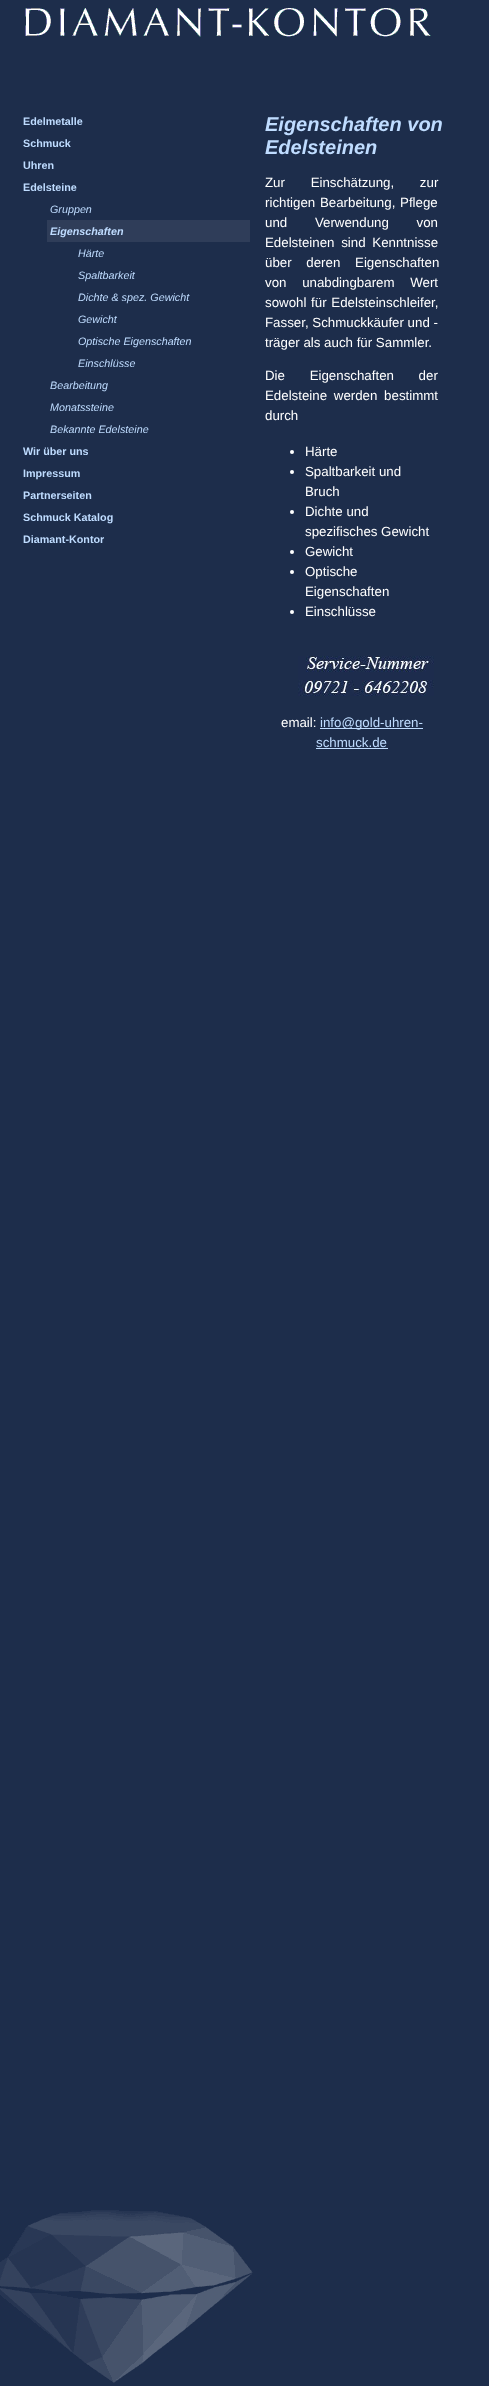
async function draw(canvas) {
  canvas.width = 489;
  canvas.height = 2386;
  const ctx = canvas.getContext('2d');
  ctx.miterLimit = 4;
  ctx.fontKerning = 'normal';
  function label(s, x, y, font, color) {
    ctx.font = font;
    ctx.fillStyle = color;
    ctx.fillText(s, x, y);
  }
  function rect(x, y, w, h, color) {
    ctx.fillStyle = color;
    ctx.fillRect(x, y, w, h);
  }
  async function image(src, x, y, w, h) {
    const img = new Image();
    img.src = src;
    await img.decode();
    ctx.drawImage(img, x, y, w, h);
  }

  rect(0, 0, 489, 2386, '#1d2d4b');
  await image('assets/img1.png', 0, 2210, 253, 173);
  await image('assets/img2.png', 25, 8, 406, 29);
  label('Edelmetalle', 23, 125, 'bold 10.75px Liberation Sans', '#bfdcff');
  label('Schmuck', 23, 147, 'bold 10.75px Liberation Sans', '#bfdcff');
  label('Uhren', 23, 169, 'bold 10.75px Liberation Sans', '#bfdcff');
  label('Edelsteine', 23, 191, 'bold 10.75px Liberation Sans', '#bfdcff');
  label('Gruppen', 50, 213, 'italic 10.75px Liberation Sans', '#bfdcff');
  rect(47, 220, 203, 22, '#2f3d59');
  label('Eigenschaften', 50, 235, 'italic bold 10.75px Liberation Sans', '#bfdcff');
  label('Härte', 78, 257, 'italic 10.75px Liberation Sans', '#bfdcff');
  label('Spaltbarkeit', 78, 279, 'italic 10.75px Liberation Sans', '#bfdcff');
  label('Dichte & spez. Gewicht', 78, 301, 'italic 10.75px Liberation Sans', '#bfdcff');
  label('Gewicht', 78, 323, 'italic 10.75px Liberation Sans', '#bfdcff');
  label('Optische Eigenschaften', 78, 345, 'italic 10.75px Liberation Sans', '#bfdcff');
  label('Einschlüsse', 78, 367, 'italic 10.75px Liberation Sans', '#bfdcff');
  label('Bearbeitung', 50, 389, 'italic 10.75px Liberation Sans', '#bfdcff');
  label('Monatssteine', 50, 411, 'italic 10.75px Liberation Sans', '#bfdcff');
  label('Bekannte Edelsteine', 50, 433, 'italic 10.75px Liberation Sans', '#bfdcff');
  label('Wir über uns', 23, 455, 'bold 10.75px Liberation Sans', '#bfdcff');
  label('Impressum', 23, 477, 'bold 10.75px Liberation Sans', '#bfdcff');
  label('Partnerseiten', 23, 499, 'bold 10.75px Liberation Sans', '#bfdcff');
  label('Schmuck Katalog', 23, 521, 'bold 10.75px Liberation Sans', '#bfdcff');
  label('Diamant-Kontor', 23, 543, 'bold 10.75px Liberation Sans', '#bfdcff');
  label('Eigenschaften von', 265, 131, 'italic bold 20px Liberation Sans', '#bfdcff');
  label('Edelsteinen', 265, 154, 'italic bold 20px Liberation Sans', '#bfdcff');
  ctx.wordSpacing = '22px';
  label('Zur Einschätzung, zur', 265, 187, '13.3px Liberation Sans', '#fff');
  ctx.wordSpacing = '1px';
  label('richtigen Bearbeitung, Pflege', 265, 207, '13.3px Liberation Sans', '#fff');
  ctx.wordSpacing = '24px';
  label('und Verwendung von', 265, 227, '13.3px Liberation Sans', '#fff');
  ctx.wordSpacing = '3px';
  label('Edelsteinen sind Kenntnisse', 265, 247, '13.3px Liberation Sans', '#fff');
  ctx.wordSpacing = '11px';
  label('über deren Eigenschaften', 265, 267, '13.3px Liberation Sans', '#fff');
  ctx.wordSpacing = '12px';
  label('von unabdingbarem Wert', 265, 287, '13.3px Liberation Sans', '#fff');
  ctx.wordSpacing = '1px';
  label('sowohl für Edelsteinschleifer,', 265, 307, '13.3px Liberation Sans', '#fff');
  ctx.wordSpacing = '0px';
  label('Fasser, Schmuckkäufer und -', 265, 327, '13.3px Liberation Sans', '#fff');
  label('träger als auch für Sammler.', 265, 347, '13.3px Liberation Sans', '#fff');
  ctx.wordSpacing = '21px';
  label('Die Eigenschaften der', 265, 380, '13.3px Liberation Sans', '#fff');
  ctx.wordSpacing = '3px';
  label('Edelsteine werden bestimmt', 265, 400, '13.3px Liberation Sans', '#fff');
  ctx.wordSpacing = '0px';
  label('durch', 265, 420, '13.3px Liberation Sans', '#fff');
  ctx.beginPath();
  ctx.arc(292, 452, 2, 0, 2 * Math.PI);
  ctx.fill();
  label('Härte', 305, 456, '13.3px Liberation Sans', '#fff');
  ctx.beginPath();
  ctx.arc(292, 472, 2, 0, 2 * Math.PI);
  ctx.fill();
  label('Spaltbarkeit und', 305, 476, '13.3px Liberation Sans', '#fff');
  label('Bruch', 305, 496, '13.3px Liberation Sans', '#fff');
  ctx.beginPath();
  ctx.arc(292, 512, 2, 0, 2 * Math.PI);
  ctx.fill();
  label('Dichte und', 305, 516, '13.3px Liberation Sans', '#fff');
  label('spezifisches Gewicht', 305, 536, '13.3px Liberation Sans', '#fff');
  ctx.beginPath();
  ctx.arc(292, 552, 2, 0, 2 * Math.PI);
  ctx.fill();
  label('Gewicht', 305, 556, '13.3px Liberation Sans', '#fff');
  ctx.beginPath();
  ctx.arc(292, 572, 2, 0, 2 * Math.PI);
  ctx.fill();
  label('Optische', 305, 576, '13.3px Liberation Sans', '#fff');
  label('Eigenschaften', 305, 596, '13.3px Liberation Sans', '#fff');
  ctx.beginPath();
  ctx.arc(292, 612, 2, 0, 2 * Math.PI);
  ctx.fill();
  label('Einschlüsse', 305, 616, '13.3px Liberation Sans', '#fff');
  await image('assets/img3.png', 298, 656, 136, 40);
  label('email:', 281, 727, '13.3px Liberation Sans', '#fff');
  rect(320, 728, 103, 1, '#bfdcff');
  label('info@gold-uhren-', 320, 727, '13.3px Liberation Sans', '#bfdcff');
  label('schmuck.de', 316, 747, '13.3px Liberation Sans', '#bfdcff');
  rect(316, 748, 72, 1, '#bfdcff');
}

draw(document.querySelector('canvas'));
